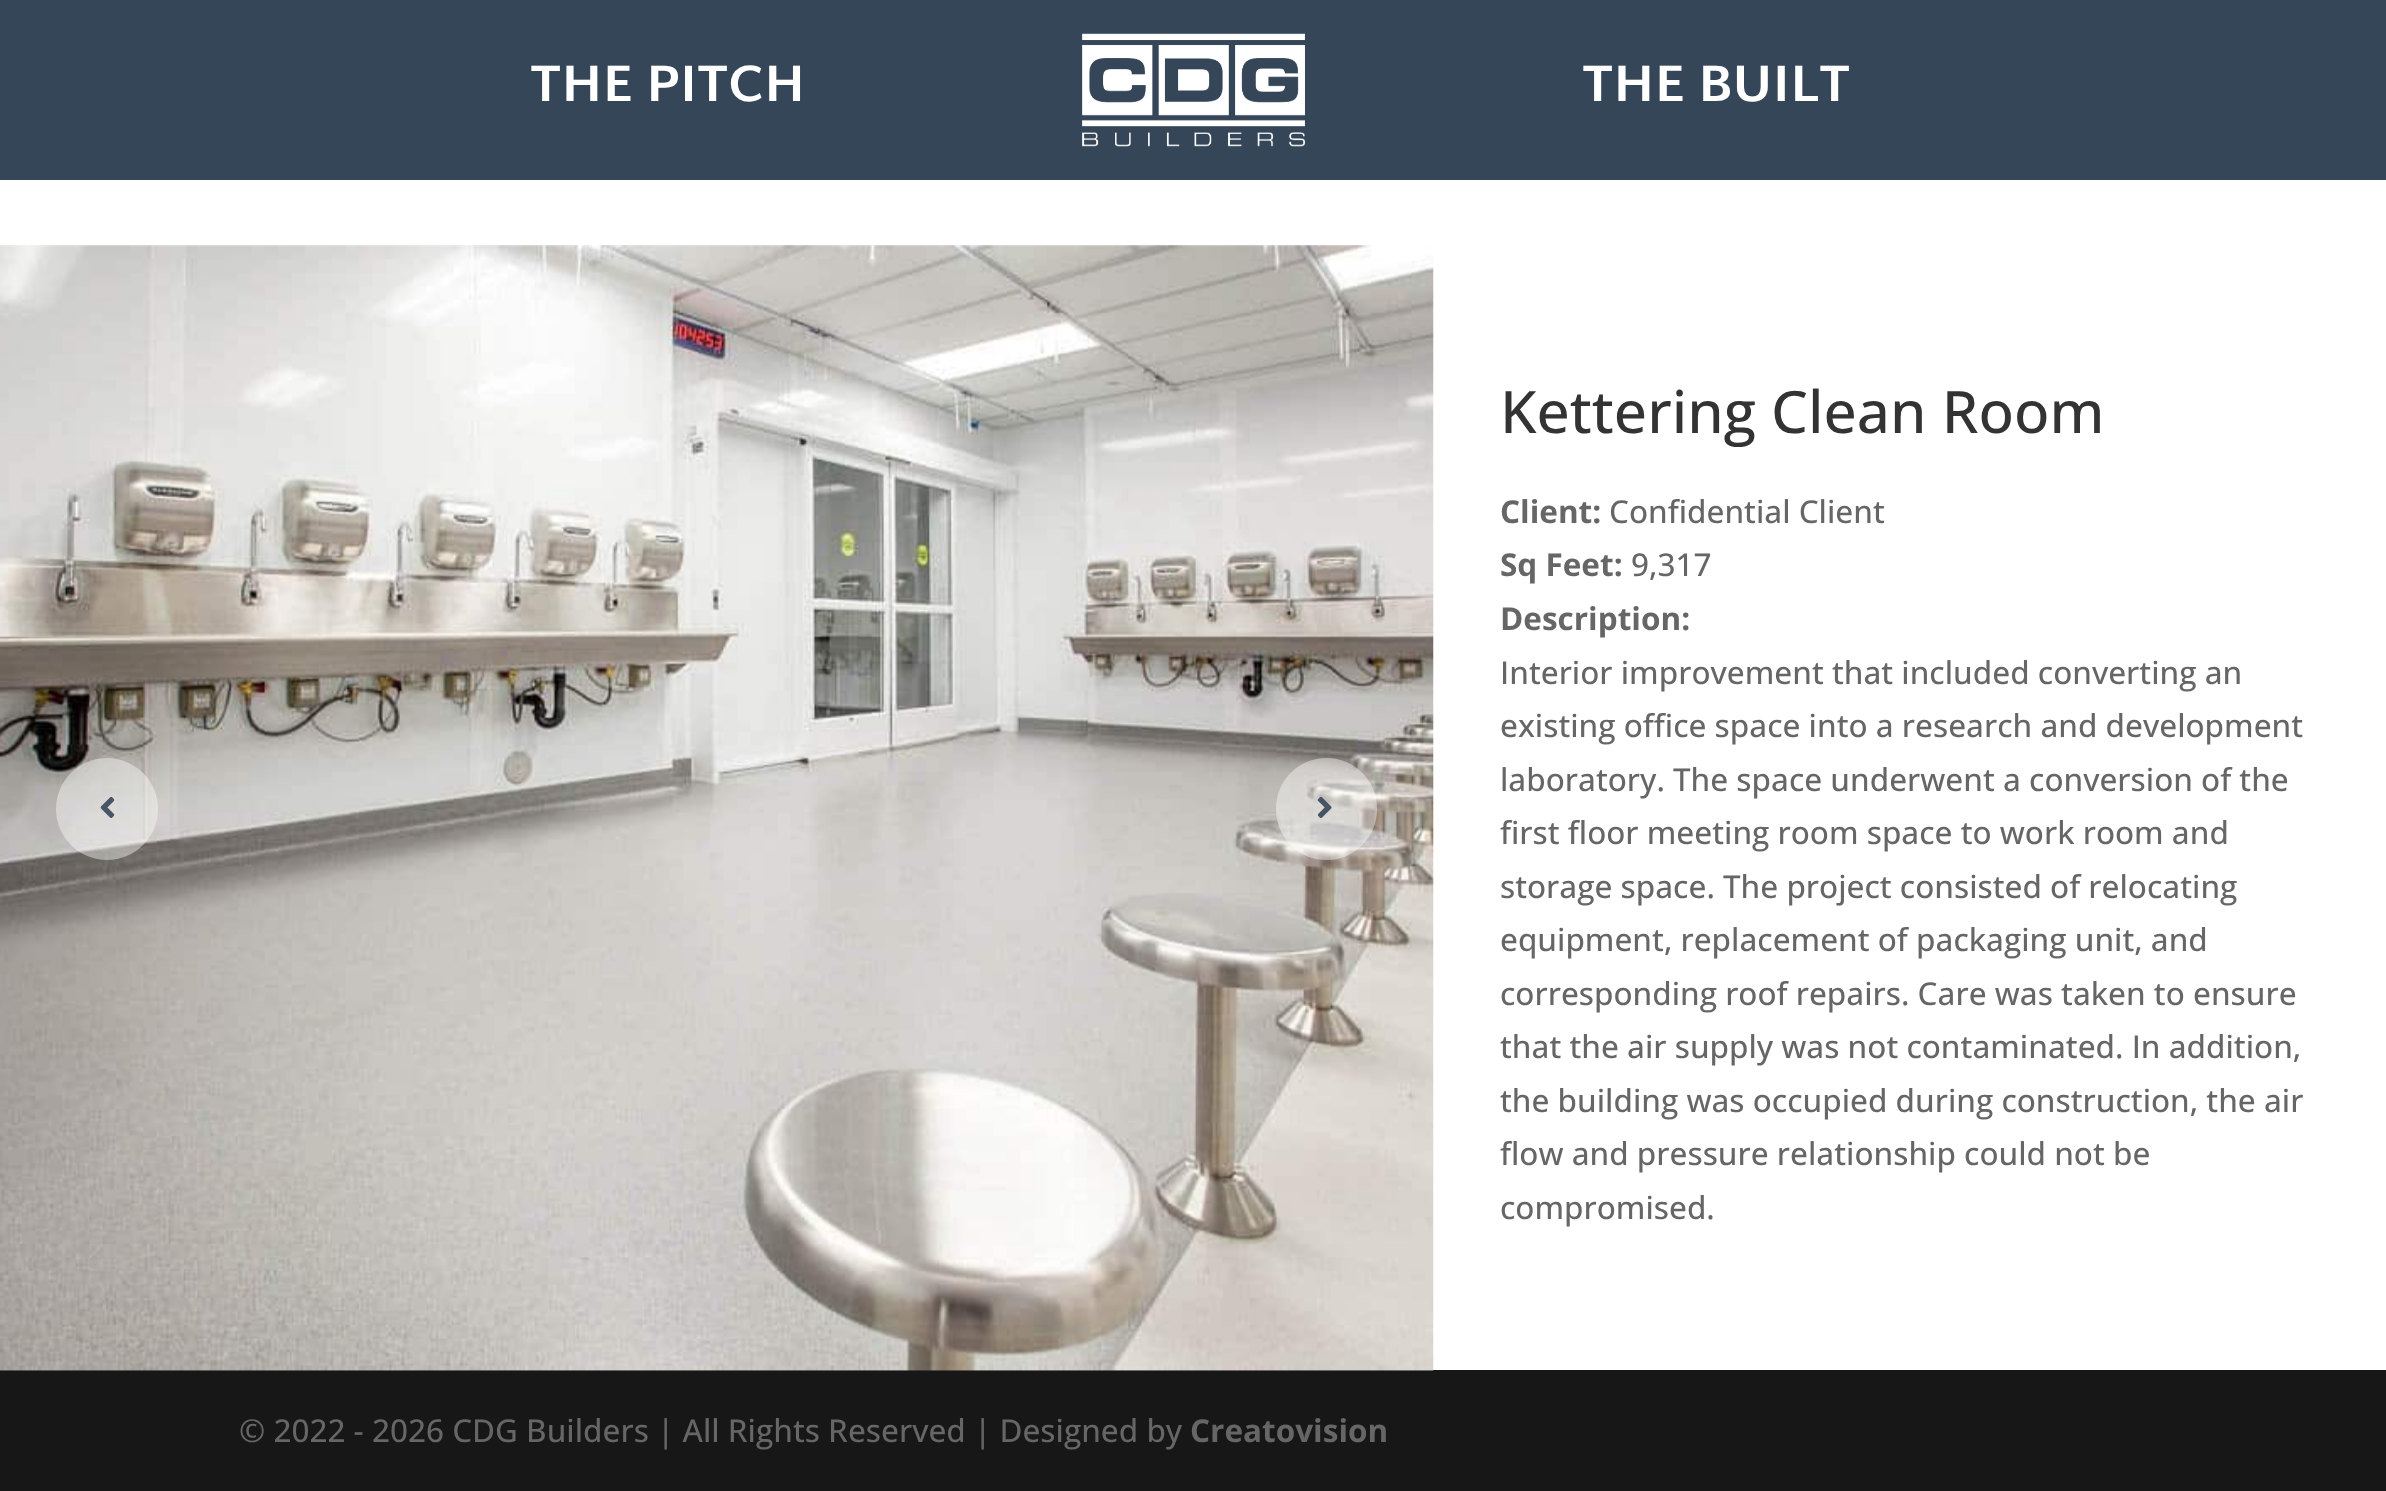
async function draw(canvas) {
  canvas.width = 2386;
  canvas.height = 1491;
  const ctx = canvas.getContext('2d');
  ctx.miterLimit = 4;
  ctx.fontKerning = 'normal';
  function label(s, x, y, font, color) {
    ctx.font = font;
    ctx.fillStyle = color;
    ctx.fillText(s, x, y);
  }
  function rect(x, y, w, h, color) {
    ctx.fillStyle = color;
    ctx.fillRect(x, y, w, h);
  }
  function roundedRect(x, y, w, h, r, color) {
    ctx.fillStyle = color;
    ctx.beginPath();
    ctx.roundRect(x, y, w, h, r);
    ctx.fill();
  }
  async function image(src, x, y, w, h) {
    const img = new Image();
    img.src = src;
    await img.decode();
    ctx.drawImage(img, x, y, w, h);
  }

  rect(0, 0, 2386, 1491, '#fff');
  rect(0, 0, 2386, 180, '#364659');
  label('THE PITCH', 530, 101, 'bold 51.75px Martel Sans', '#fff');
  await image('assets/img1.png', 1082, 33, 223, 114);
  label('THE BUILT', 1582, 101, 'bold 51.75px Martel Sans', '#fff');
  rect(0, 1370, 2386, 121, '#171717');
  await image('assets/img2.png', 0, 245, 1434, 1126);
  ctx.fillStyle = '#ffffff6b';
  ctx.beginPath();
  ctx.arc(107, 809, 51, 0, 2 * Math.PI);
  ctx.fill();
  await image('assets/img3.png', 100, 796, 15, 22);
  roundedRect(1276, 758, 101, 102, 50.5, '#ffffff6b');
  await image('assets/img4.png', 1317, 797, 15, 21);
  label('Kettering Clean Room', 1500, 433, '500 58.5px Open Sans', '#333');
  label('Client:', 1500, 523, 'bold 31.5px Open Sans', '#666');
  label('Confidential Client', 1609, 523, '500 31.5px Open Sans', '#666');
  label('Sq Feet:', 1500, 576, 'bold 31.5px Open Sans', '#666');
  label('9,317', 1631, 576, '500 31.5px Open Sans', '#666');
  label('Description:', 1500, 630, 'bold 31.5px Open Sans', '#666');
  label('Interior improvement that included converting an', 1500, 684, '500 31.5px Open Sans', '#666');
  label('existing office space into a research and development', 1500, 737, '500 31.5px Open Sans', '#666');
  label('laboratory. The space underwent a conversion of the', 1500, 791, '500 31.5px Open Sans', '#666');
  label('first floor meeting room space to work room and', 1500, 844, '500 31.5px Open Sans', '#666');
  label('storage space. The project consisted of relocating', 1500, 898, '500 31.5px Open Sans', '#666');
  label('equipment, replacement of packaging unit, and', 1500, 951, '500 31.5px Open Sans', '#666');
  label('corresponding roof repairs. Care was taken to ensure', 1500, 1005, '500 31.5px Open Sans', '#666');
  label('that the air supply was not contaminated. In addition,', 1500, 1058, '500 31.5px Open Sans', '#666');
  label('the building was occupied during construction, the air', 1500, 1112, '500 31.5px Open Sans', '#666');
  label('flow and pressure relationship could not be', 1500, 1165, '500 31.5px Open Sans', '#666');
  label('compromised.', 1500, 1219, '500 31.5px Open Sans', '#666');
  label('© 2022 - 2026 CDG Builders | All Rights Reserved | Designed by', 239, 1442, '500 31.5px Open Sans', '#666');
  label('Creatovision', 1190, 1442, 'bold 31.5px Open Sans', '#666');
}

draw(document.querySelector('canvas'));
